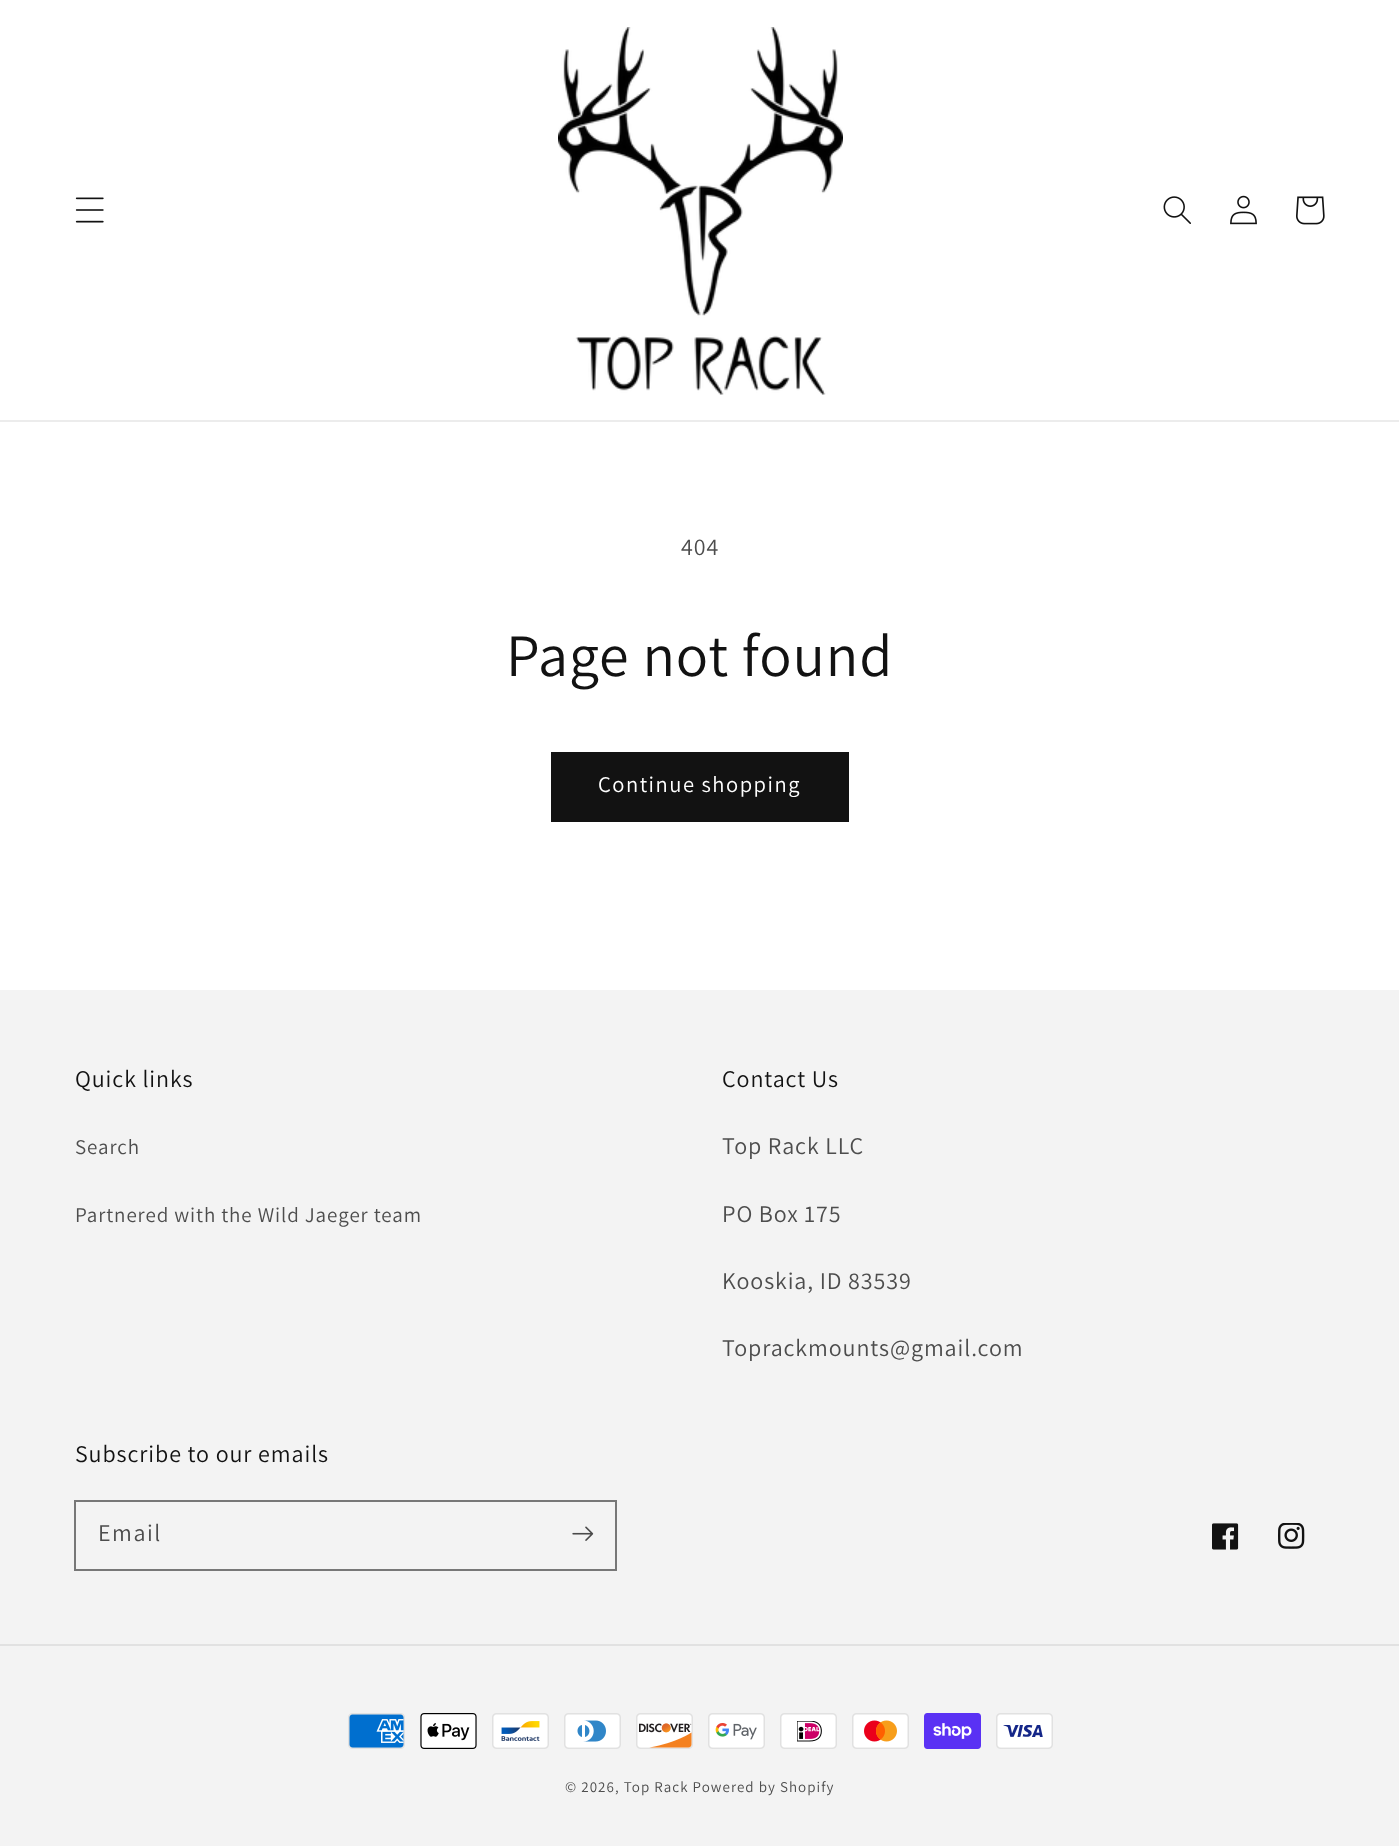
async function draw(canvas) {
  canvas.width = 1399;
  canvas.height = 1846;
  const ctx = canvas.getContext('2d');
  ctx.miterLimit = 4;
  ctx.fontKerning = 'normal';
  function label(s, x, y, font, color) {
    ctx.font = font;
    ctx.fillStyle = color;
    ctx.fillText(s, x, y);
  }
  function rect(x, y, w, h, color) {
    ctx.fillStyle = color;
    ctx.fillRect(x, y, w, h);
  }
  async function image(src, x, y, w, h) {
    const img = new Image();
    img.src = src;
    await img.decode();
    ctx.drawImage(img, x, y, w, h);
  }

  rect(0, 0, 1399, 1846, '#fff');
  rect(0, 420, 1399, 2, '#ececec');
  await image('assets/img1.png', 75, 197, 29, 26);
  await image('assets/img2.png', 558, 27, 285, 368);
  await image('assets/img3.png', 1163, 196, 28, 28);
  await image('assets/img4.png', 1230, 195, 27, 30);
  await image('assets/img5.png', 1296, 196, 29, 29);
  ctx.letterSpacing = '0.9px';
  label('404', 681, 555, '24px Assistant', '#4d4d4d');
  label('Page not found', 506, 676, '60px Assistant', '#121212');
  ctx.strokeStyle = '#121212';
  ctx.lineWidth = 2;
  ctx.strokeRect(552, 753, 296, 68);
  rect(553, 754, 294, 66, '#121212');
  ctx.letterSpacing = '1.5px';
  label('Continue shopping', 598, 792, '22.5px Assistant', '#fff');
  rect(0, 990, 1399, 856, '#f3f3f3');
  ctx.letterSpacing = '0.9px';
  label('Quick links', 75, 1087, '24px Assistant', '#121212');
  label('Search', 75, 1154, '21px Assistant', '#4d4d4d');
  label('Partnered with the Wild Jaeger team', 75, 1222, '21px Assistant', '#4d4d4d');
  label('Contact Us', 722, 1087, '24px Assistant', '#121212');
  label('Top Rack LLC', 722, 1154, '24px Assistant', '#4d4d4d');
  label('PO Box 175', 722, 1222, '24px Assistant', '#4d4d4d');
  label('Kooskia, ID 83539', 722, 1289, '24px Assistant', '#4d4d4d');
  label('Toprackmounts@gmail.com', 722, 1356, '24px Assistant', '#4d4d4d');
  label('Subscribe to our emails', 75, 1462, '24px Assistant', '#121212');
  ctx.strokeStyle = '#777';
  ctx.strokeRect(75, 1501, 541, 69);
  ctx.letterSpacing = '1.5px';
  label('Email', 98, 1541, '24px Assistant', '#4d4d4d');
  await image('assets/img6.png', 572, 1526, 22, 15);
  await image('assets/img7.png', 1212, 1523, 27, 27);
  await image('assets/img8.png', 1278, 1523, 27, 26);
  rect(0, 1644, 1399, 2, '#e1e1e1');
  await image('assets/img9.png', 348, 1713, 57, 36);
  await image('assets/img10.png', 420, 1713, 57, 36);
  await image('assets/img11.png', 492, 1713, 57, 36);
  await image('assets/img12.png', 564, 1713, 57, 36);
  await image('assets/img13.png', 636, 1713, 57, 36);
  await image('assets/img14.png', 708, 1713, 57, 36);
  await image('assets/img15.png', 780, 1713, 57, 36);
  await image('assets/img16.png', 852, 1713, 57, 36);
  await image('assets/img17.png', 924, 1713, 57, 36);
  await image('assets/img18.png', 996, 1713, 57, 36);
  ctx.letterSpacing = '1.05px';
  label('© 2026, Top Rack Powered by Shopify', 565, 1792, '15px Assistant', '#4d4d4d');
}

draw(document.querySelector('canvas'));
